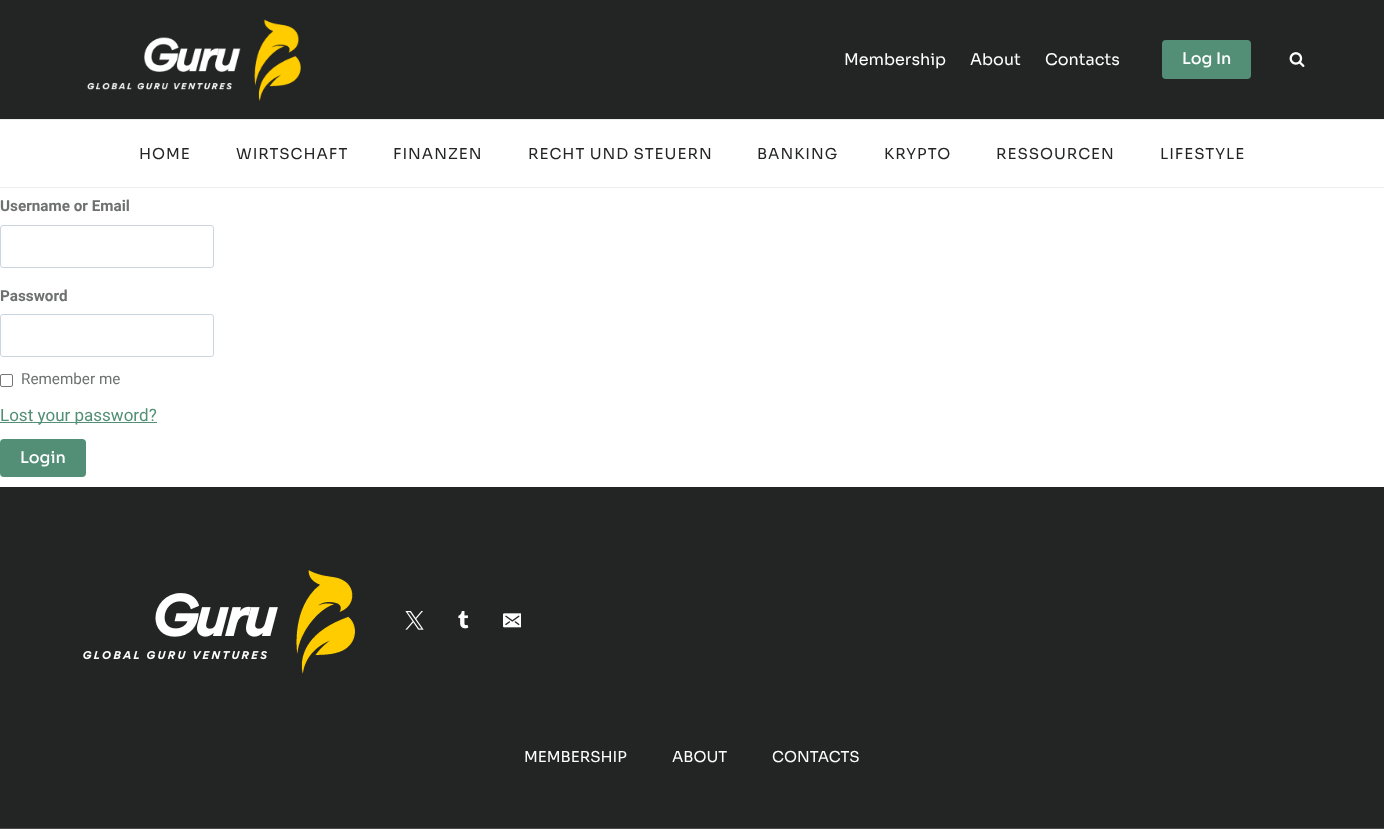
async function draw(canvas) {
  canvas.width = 1384;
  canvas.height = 829;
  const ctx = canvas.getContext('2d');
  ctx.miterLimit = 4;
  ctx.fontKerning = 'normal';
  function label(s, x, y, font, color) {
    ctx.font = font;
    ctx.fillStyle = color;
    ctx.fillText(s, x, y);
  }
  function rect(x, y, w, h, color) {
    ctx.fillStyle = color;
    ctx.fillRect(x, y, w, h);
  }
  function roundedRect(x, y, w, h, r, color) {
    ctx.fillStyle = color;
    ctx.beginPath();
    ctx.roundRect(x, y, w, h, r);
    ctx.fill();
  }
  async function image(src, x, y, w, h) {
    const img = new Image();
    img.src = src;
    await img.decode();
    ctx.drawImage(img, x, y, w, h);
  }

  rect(0, 0, 1384, 829, '#fff');
  rect(0, 0, 1384, 119, '#232424');
  await image('assets/img1.png', 87, 19, 214, 82);
  label('Membership', 844, 65, '16px Sora', '#fff');
  label('About', 970, 65, '16px Sora', '#fff');
  label('Contacts', 1045, 65, '16px Sora', '#fff');
  roundedRect(1162, 40, 89, 39, 4, '#528f76');
  label('Log In', 1182, 64, '500 16px Sora', '#fff');
  await image('assets/img2.png', 1289, 52, 16, 15);
  rect(0, 119, 1384, 1, '#eee');
  rect(0, 187, 1384, 1, '#eee');
  ctx.letterSpacing = '1px';
  label('HOME', 139, 159, '15px Sora', '#232424');
  label('WIRTSCHAFT', 236, 159, '15px Sora', '#232424');
  label('FINANZEN', 393, 159, '15px Sora', '#232424');
  label('RECHT UND STEUERN', 528, 159, '15px Sora', '#232424');
  label('BANKING', 757, 159, '15px Sora', '#232424');
  label('KRYPTO', 884, 159, '15px Sora', '#232424');
  label('RESSOURCEN', 996, 159, '15px Sora', '#232424');
  label('LIFESTYLE', 1160, 159, '15px Sora', '#232424');
  ctx.letterSpacing = '0px';
  label('Username or Email', 0, 211, 'bold 15.25px Heebo', '#6f7171');
  ctx.beginPath();
  ctx.roundRect(0.5, 225.5, 213, 42, 2.5);
  ctx.strokeStyle = '#cbd5e0';
  ctx.stroke();
  label('Password', 0, 301, 'bold 15.25px Heebo', '#6f7171');
  ctx.beginPath();
  ctx.roundRect(0.5, 314.5, 213, 42, 2.5);
  ctx.stroke();
  ctx.beginPath();
  ctx.roundRect(0.5, 374.5, 12, 12, 1.5);
  ctx.strokeStyle = '#767676';
  ctx.stroke();
  label('Remember me', 21, 384, '15.25px Heebo', '#6f7171');
  rect(0, 422, 157, 1, '#528f76');
  label('Lost your password?', 0, 421, '17px Heebo', '#528f76');
  roundedRect(0, 439, 86, 38, 4, '#528f76');
  label('Login', 20, 463, '500 16px Sora', '#fff');
  rect(0, 487, 1384, 341, '#232424');
  await image('assets/img3.png', 83, 570, 272, 104);
  await image('assets/img4.png', 405, 611, 19, 19);
  await image('assets/img5.png', 458, 611, 11, 18);
  await image('assets/img6.png', 503, 613, 18, 15);
  rect(0, 828, 1384, 1, '#484949');
  label('MEMBERSHIP', 524, 762, '15px Sora', '#fff');
  label('ABOUT', 672, 762, '15px Sora', '#fff');
  label('CONTACTS', 772, 762, '15px Sora', '#fff');
}

draw(document.querySelector('canvas'));
